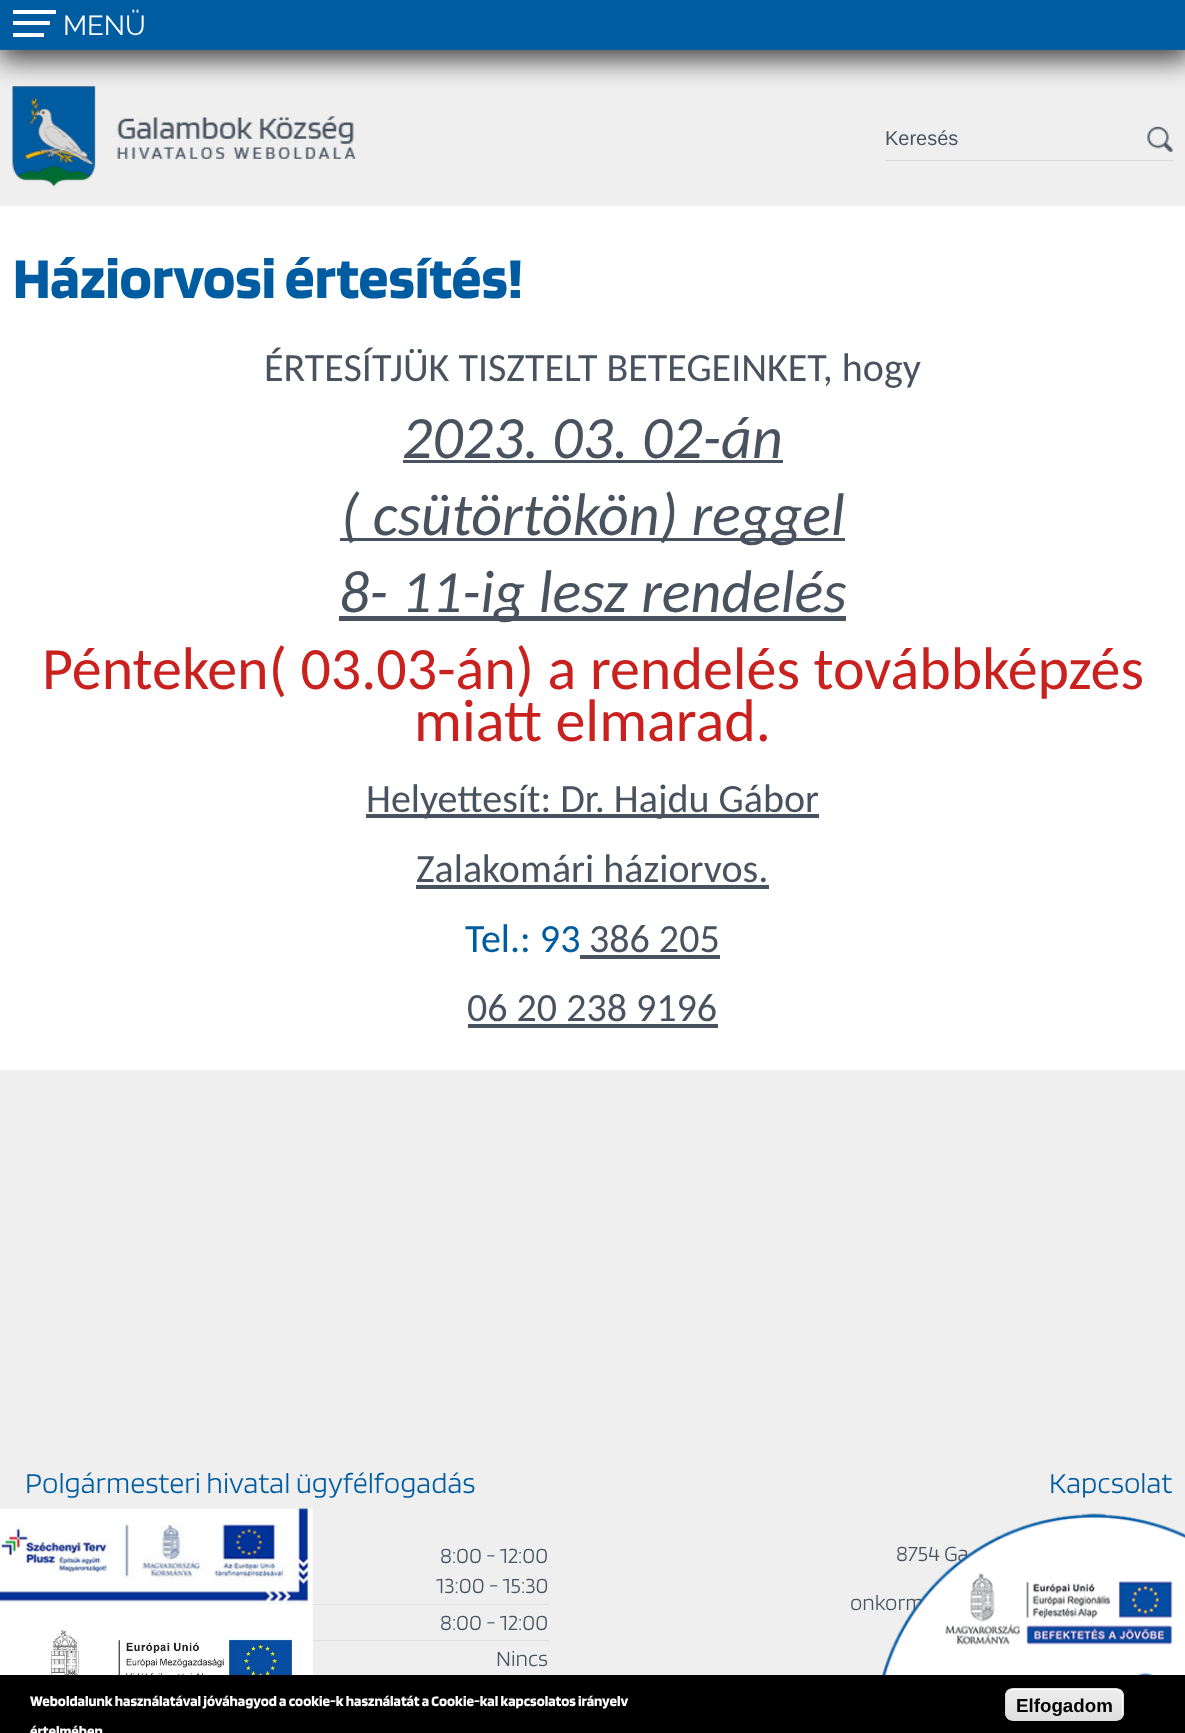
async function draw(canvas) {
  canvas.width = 1185;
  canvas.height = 1733;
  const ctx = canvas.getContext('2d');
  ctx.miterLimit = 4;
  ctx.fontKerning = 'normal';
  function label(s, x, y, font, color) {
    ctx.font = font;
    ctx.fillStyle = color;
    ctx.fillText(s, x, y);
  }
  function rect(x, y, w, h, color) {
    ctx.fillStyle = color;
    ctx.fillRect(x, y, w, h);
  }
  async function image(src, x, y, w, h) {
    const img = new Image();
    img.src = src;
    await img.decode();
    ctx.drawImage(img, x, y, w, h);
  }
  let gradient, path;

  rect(0, 0, 1185, 1733, '#fff');
  rect(0, 50, 1185, 156, '#efefef');
  await image('assets/img1.png', 12, 86, 344, 101);
  ctx.fillStyle = '#000000bf';
  ctx.filter = 'blur(14px)';
  ctx.beginPath();
  ctx.rect(-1, 1, 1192, 58);
  ctx.fill();
  ctx.filter = 'none';
  rect(0, 0, 1185, 50, '#005ca1');
  rect(13, 10, 43, 4, '#fff');
  label('MENÜ', 63, 35, '27.5px Raleway', '#fff');
  rect(13, 21, 37, 4, '#fff');
  rect(13, 33, 31, 4, '#fff');
  rect(885, 160, 288, 1, '#d9d9d9');
  label('Keresés', 885, 145, '20px Liberation Sans', '#49535f');
  await image('assets/img2.png', 1147, 126, 26, 26);
  label('Háziorvosi értesítés!', 13, 298, 'bold 60px Blinker', '#005ca1');
  label('ÉRTESÍTJÜK TISZTELT BETEGEINKET, hogy', 264, 381, '40px Carlito', '#49535f');
  label('2023. 03. 02-án', 402, 458, 'italic 60px Carlito', '#49535f');
  rect(403, 460, 380, 3, '#49535f');
  rect(340, 538, 505, 3, '#49535f');
  label('( csütörtökön) reggel', 341, 535, 'italic 60px Carlito', '#49535f');
  rect(339, 616, 507, 5, '#49535f');
  label('8- 11-ig lesz rendelés', 339, 612, 'italic 60px Carlito', '#49535f');
  label('Pénteken( 03.03-án) a rendelés továbbképzés', 42, 689, '60px Carlito', '#c9211e');
  label('miatt elmarad.', 414, 741, '60px Carlito', '#c9211e');
  rect(366, 814, 162, 4, '#49535f');
  label('Helyettesí', 366, 812, '40px Carlito', '#49535f');
  rect(528, 814, 291, 4, '#49535f');
  label('t: Dr. Hajdu Gábor', 527, 812, '40px Carlito', '#49535f');
  label('Zalakomári háziorvos.', 416, 882, '40px Carlito', '#49535f');
  rect(416, 885, 353, 4, '#49535f');
  label('Tel.: 93', 465, 952, '40px Carlito', '#005ca1');
  label('386 205', 589, 952, '40px Carlito', '#49535f');
  rect(580, 955, 140, 4, '#49535f');
  label('06 20 238 9196', 467, 1021, '40px Carlito', '#49535f');
  rect(468, 1024, 250, 4, '#49535f');
  rect(0, 1070, 1185, 605, '#efefef');
  label('Polgármesteri hivatal ügyfélfogadás', 25, 1493, '200 30px Blinker', '#005ca1');
  rect(312, 1604, 237, 1, '#dfdfdf');
  label('8:00 - 12:00', 440, 1563, '200 22.5px Blinker', '#49535f');
  label('13:00 - 15:30', 436, 1593, '200 22.5px Blinker', '#49535f');
  rect(312, 1640, 237, 1, '#dfdfdf');
  label('8:00 - 12:00', 440, 1630, '200 22.5px Blinker', '#49535f');
  label('Nincs', 496, 1666, '200 22.5px Blinker', '#49535f');
  label('Kapcsolat', 1049, 1493, '200 30px Blinker', '#005ca1');
  label('8754 Ga', 896, 1561, '200 22.5px Blinker', '#49535f');
  label('onkorm', 850, 1610, '200 22.5px Blinker', '#49535f');
  await image('assets/img3.png', 0, 1508, 313, 96);
  await image('assets/img4.png', 0, 1604, 313, 71);
  await image('assets/img5.png', 882, 1513, 303, 162);
  rect(0, 1675, 1185, 58, '#000');
  label('Weboldalunk használatával jóváhagyod a cookie-k használatát a Cookie-kal kapcsolatos irányelv', 30, 1706, 'bold 15px Blinker', '#fff');
  label('értelmében', 30, 1736, 'bold 15px Blinker', '#fff');
  ctx.save();
  ctx.beginPath();
  ctx.roundRect(1005, 1688, 119, 33, 8);
  ctx.clip();
  gradient = ctx.createLinearGradient(1064, 1689, 1064, 1720);
  gradient.addColorStop(0.05, '#ededed');
  gradient.addColorStop(1, '#dfdfdf');
  ctx.fillStyle = gradient;
  ctx.fillRect(1005, 1689, 119, 31);
  ctx.restore();
  path = new Path2D('M1012 1690H1116C1120 1690 1122 1693 1122 1696V1715C1122 1716 1122 1717 1121 1718C1122 1717 1123 1716 1123 1714V1695C1123 1692 1120 1689 1117 1689H1012C1009 1689 1006 1692 1006 1695V1696C1006 1693 1009 1690 1012 1690Z');
  ctx.fill(path);
  ctx.beginPath();
  ctx.roundRect(1005.5, 1688.5, 118, 32, 7.5);
  ctx.strokeStyle = '#dcdcdc';
  ctx.stroke();
  label('Elfogadom', 1016, 1712, 'bold 18.75px Liberation Sans', '#000');
}

draw(document.querySelector('canvas'));
